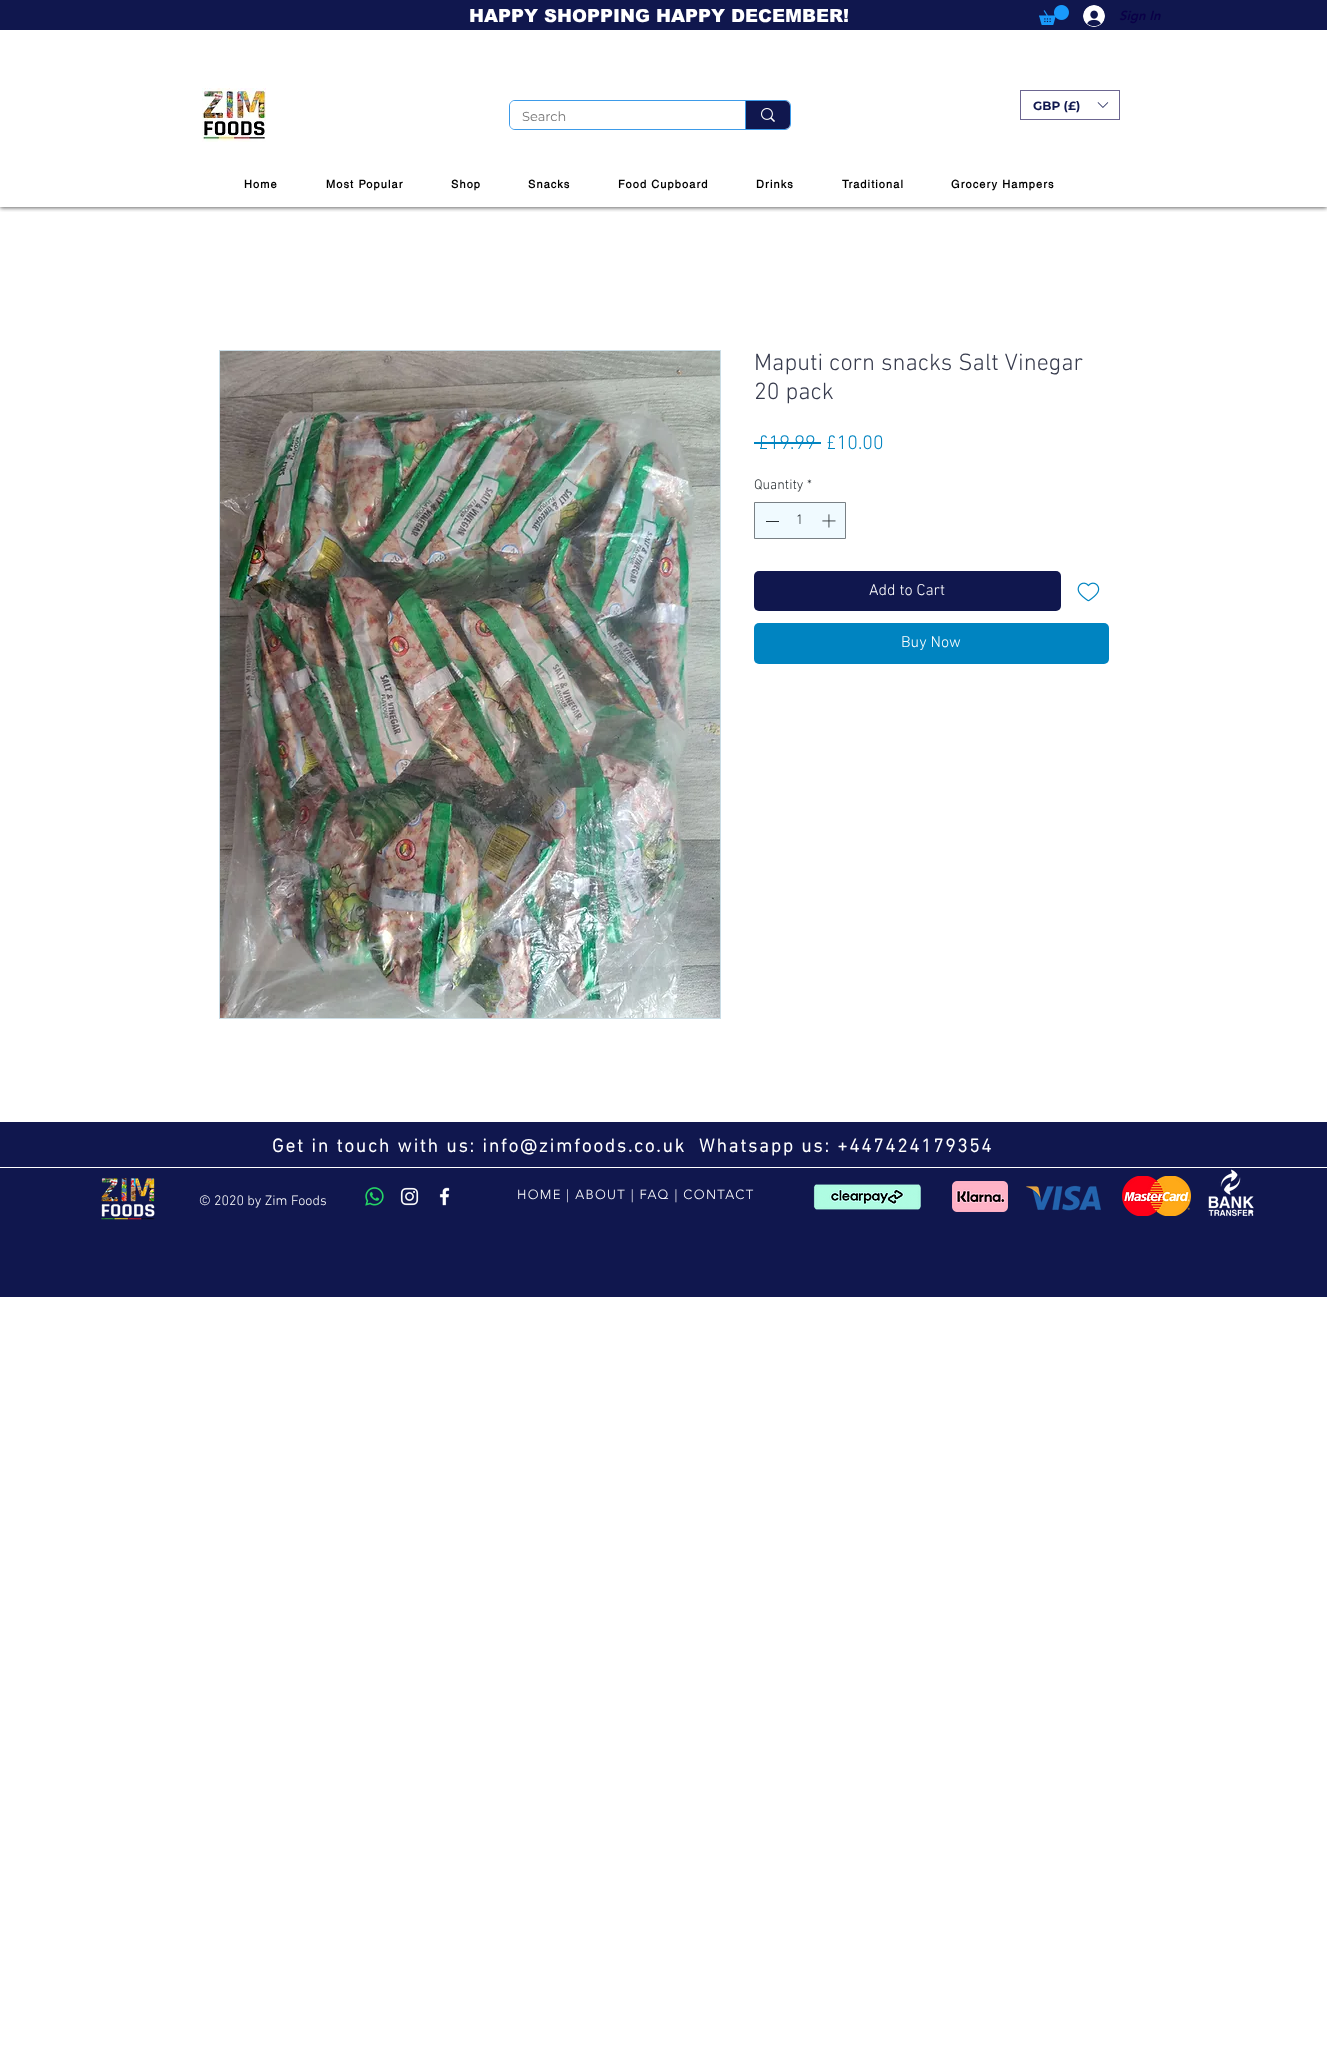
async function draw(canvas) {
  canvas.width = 1327;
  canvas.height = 2055;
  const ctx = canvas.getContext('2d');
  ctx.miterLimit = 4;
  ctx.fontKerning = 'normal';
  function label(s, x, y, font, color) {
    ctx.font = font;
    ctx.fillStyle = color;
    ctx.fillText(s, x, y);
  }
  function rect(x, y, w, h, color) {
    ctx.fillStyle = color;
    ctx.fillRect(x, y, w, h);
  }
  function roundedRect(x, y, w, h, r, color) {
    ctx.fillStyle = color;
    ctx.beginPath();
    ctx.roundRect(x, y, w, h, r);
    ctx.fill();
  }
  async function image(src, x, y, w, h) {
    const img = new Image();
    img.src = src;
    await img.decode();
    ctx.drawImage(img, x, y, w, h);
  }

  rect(0, 0, 1327, 2055, '#fff');
  ctx.save();
  ctx.beginPath();
  ctx.rect(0, 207, 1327, 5);
  ctx.clip();
  ctx.fillStyle = '#00000099';
  ctx.filter = 'blur(2px)';
  ctx.beginPath();
  ctx.rect(0, 1, 1327, 207);
  ctx.fill();
  ctx.filter = 'none';
  ctx.restore();
  rect(0, 0, 1327, 30, '#10174e');
  label('HAPPY SHOPPING HAPPY DECEMBER!', 469, 22, '900 18px arial', '#fff');
  await image('assets/img1.png', 1039, 5, 30, 20);
  await image('assets/img2.png', 1083, 5, 22, 22);
  label('Sign In', 1119, 20, 'italic 900 13px "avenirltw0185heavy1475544"', '#0a0047');
  await image('assets/img3.png', 202, 88, 64, 54);
  ctx.strokeStyle = '#6c6691';
  ctx.strokeRect(1020.5, 90.5, 99, 29);
  label('GBP (£)', 1033, 110, 'bold 12px Montserrat', '#10174e');
  await image('assets/img4.png', 1097, 102, 12, 6);
  ctx.beginPath();
  ctx.roundRect(509.5, 100.5, 281, 29, 5.5);
  ctx.strokeStyle = '#3d9be9';
  ctx.stroke();
  roundedRect(510, 101, 280, 28, 5, '#fff');
  label('Search', 522, 121, '13px Montserrat', '#787878');
  ctx.fillStyle = '#10174e';
  ctx.beginPath();
  ctx.roundRect(745, 101, 45, 28, [0, 5, 5, 0]);
  ctx.fill();
  rect(745, 101, 1, 28, '#3d9be9');
  await image('assets/img5.png', 761, 108, 14, 14);
  ctx.letterSpacing = '1.1px';
  label('Home', 244, 188, 'bold 11px helvetica', '#000');
  label('Most Popular', 326, 188, 'bold 11px helvetica', '#000');
  label('Shop', 451, 188, 'bold 11px helvetica', '#000');
  label('Snacks', 528, 188, 'bold 11px helvetica', '#000');
  label('Food Cupboard', 618, 188, 'bold 11px helvetica', '#000');
  label('Drinks', 756, 188, 'bold 11px helvetica', '#000');
  label('Traditional', 842, 188, 'bold 11px helvetica', '#000');
  label('Grocery Hampers', 951, 188, 'bold 11px helvetica', '#000');
  ctx.strokeStyle = '#cadde6';
  ctx.strokeRect(219.5, 350.5, 501, 668);
  await image('assets/img6.png', 220, 351, 500, 667);
  ctx.letterSpacing = '0px';
  label('Maputi corn snacks Salt Vinegar', 754, 370, '300 24px "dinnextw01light"', '#373b4d');
  label('20 pack', 754, 399, '300 24px "dinnextw01light"', '#373b4d');
  label('£19.99', 758, 449, '300 20px "dinnextw01light"', '#0084c1');
  rect(754, 442, 67, 2, '#0084c1');
  label('£10.00', 826, 449, '300 20px "dinnextw01light"', '#0084c1');
  label('Quantity', 754, 489, '300 14px "dinnextw01light"', '#292f33');
  label('*', 807, 489, '300 14px "dinnextw01light"', '#292f33');
  ctx.fillStyle = '#f0faff';
  ctx.beginPath();
  ctx.rect(754.5, 502.5, 91, 36);
  ctx.fill();
  ctx.strokeStyle = '#798085';
  ctx.stroke();
  rect(766, 521, 13, 1, '#292f33');
  label('1', 796, 524, '300 14px "dinnextw01light"', '#292f33');
  await image('assets/img7.png', 822, 514, 14, 14);
  roundedRect(754, 571, 307, 40, 5, '#10174e');
  label('Add to Cart', 869, 595, '300 16px "dinnextw01light"', '#fff');
  await image('assets/img8.png', 1077, 582, 23, 20);
  roundedRect(754, 623, 355, 41, 5, '#0084c1');
  label('Buy Now', 901, 647, '300 16px "dinnextw01light"', '#fff');
  rect(0, 1122, 1327, 175, '#10174e');
  ctx.letterSpacing = '1.9px';
  label('Get in touch with us: info@zimfoods.co.uk', 272, 1152, 'bold 19px "dinnextw01light"', '#fff');
  label('Whatsapp us: +447424179354', 699, 1152, 'bold 19px "dinnextw01light"', '#fff');
  rect(0, 1167, 1327, 1, '#fff');
  await image('assets/img9.png', 101, 1178, 54, 42);
  ctx.letterSpacing = '0px';
  label('© 2020 by Zim Foods', 199, 1205, '300 14px "dinnextw01light"', '#fff');
  await image('assets/img10.png', 365, 1187, 19, 19);
  await image('assets/img11.png', 400, 1187, 19, 19);
  await image('assets/img12.png', 439, 1187, 11, 19);
  ctx.letterSpacing = '1.3px';
  label('HOME | ABOUT | FAQ | CONTACT', 517, 1199, '300 13px "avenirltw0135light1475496"', '#fff');
  await image('assets/img13.png', 813, 1184, 108, 26);
  await image('assets/img14.png', 952, 1181, 56, 31);
  await image('assets/img15.png', 1026, 1185, 75, 26);
  await image('assets/img16.png', 1122, 1176, 69, 40);
  await image('assets/img17.png', 1208, 1169, 46, 48);
}

draw(document.querySelector('canvas'));
